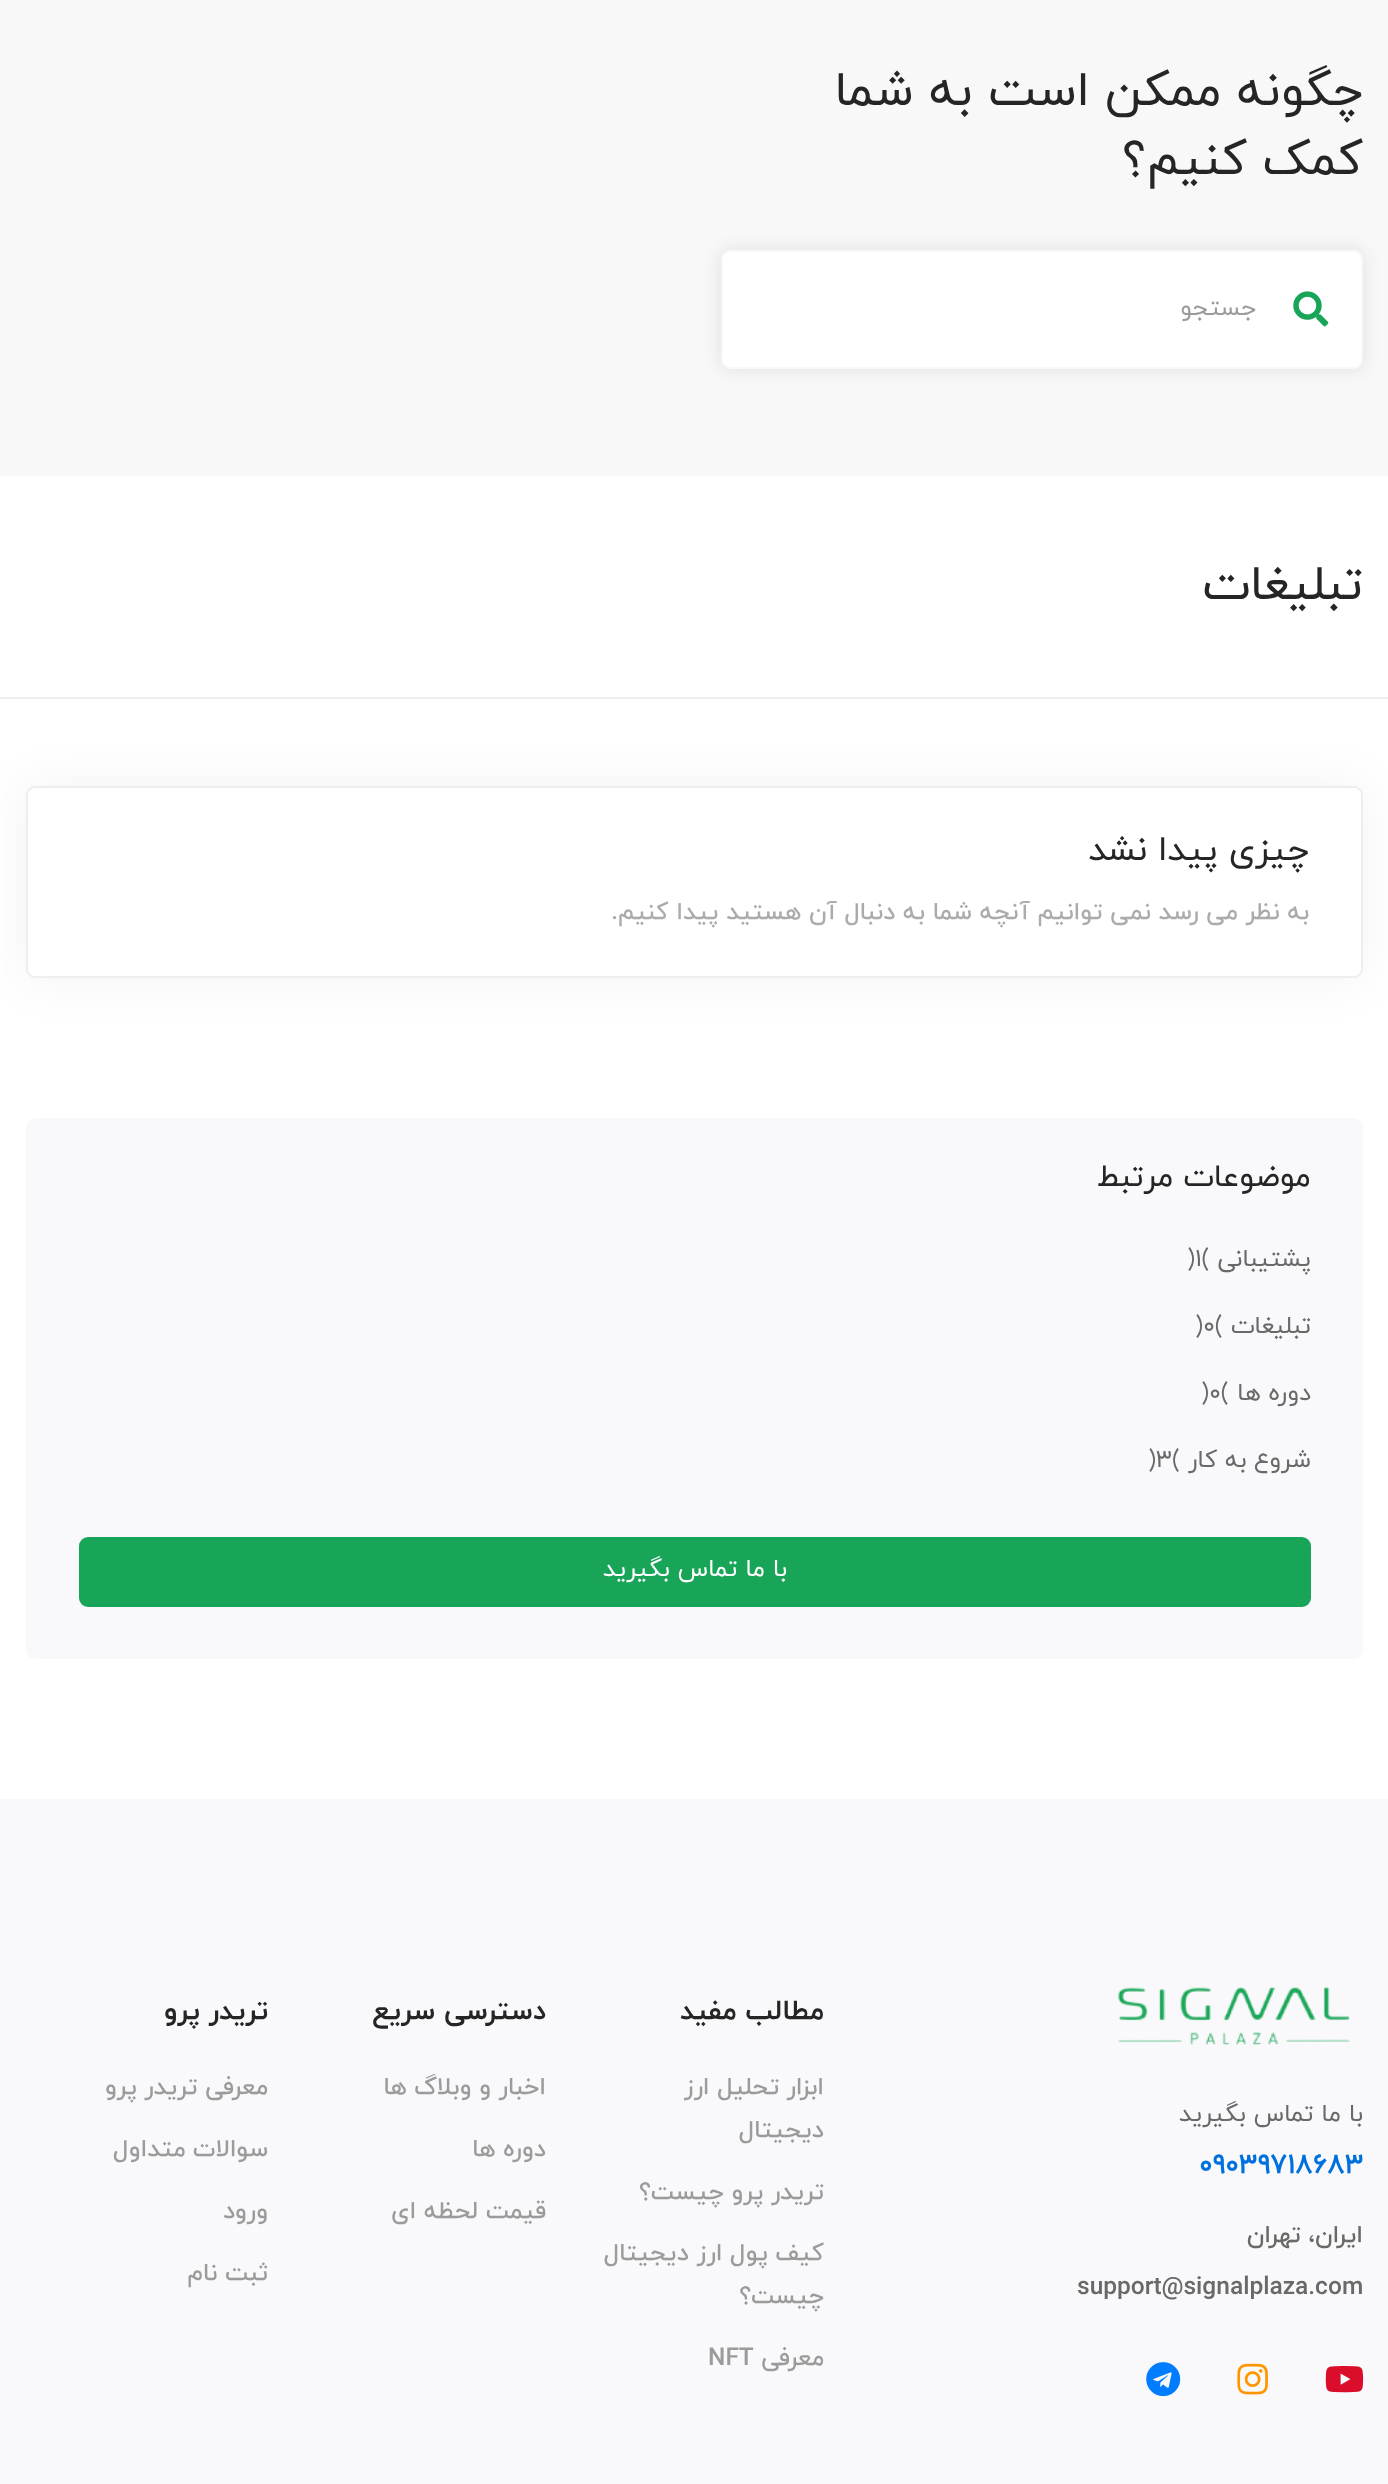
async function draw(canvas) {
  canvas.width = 1388;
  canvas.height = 2484;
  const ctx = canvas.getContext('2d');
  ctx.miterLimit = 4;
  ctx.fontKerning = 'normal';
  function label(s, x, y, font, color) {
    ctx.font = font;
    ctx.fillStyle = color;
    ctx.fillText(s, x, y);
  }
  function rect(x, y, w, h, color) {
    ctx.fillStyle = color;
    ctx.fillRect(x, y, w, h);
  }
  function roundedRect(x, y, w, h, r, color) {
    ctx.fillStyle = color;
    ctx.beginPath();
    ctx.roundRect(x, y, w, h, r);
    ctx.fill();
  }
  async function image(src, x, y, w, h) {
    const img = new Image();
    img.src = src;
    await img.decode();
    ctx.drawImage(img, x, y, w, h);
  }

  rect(0, 0, 1388, 2484, '#fff');
  rect(0, 0, 1388, 476, '#f8f8f8');
  ctx.direction = 'rtl';
  label('چگونه ممکن است به شما', 1363, 105, '49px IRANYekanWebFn', '#252525');
  label('کمک کنیم؟', 1363, 174, '49px IRANYekanWebFn', '#252525');
  ctx.fillStyle = '#0000001a';
  ctx.filter = 'blur(9px)';
  ctx.beginPath();
  ctx.roundRect(721, 250, 642, 119, 9);
  ctx.fill();
  ctx.filter = 'none';
  ctx.fillStyle = '#fff';
  ctx.beginPath();
  ctx.roundRect(722, 251, 640, 117, 8);
  ctx.fill();
  ctx.strokeStyle = '#f8f8f8';
  ctx.lineWidth = 2;
  ctx.stroke();
  await image('assets/img1.png', 1293, 291, 36, 36);
  label('جستجو', 1256, 315, '24.5px IRANYekanWebFn', '#9b9b9b');
  rect(0, 697, 1388, 2, '#eee');
  label('تبلیغات', 1363, 599, '49px IRANYekanWebFn', '#252525');
  ctx.fillStyle = '#0000000d';
  ctx.filter = 'blur(26px)';
  ctx.beginPath();
  ctx.roundRect(26, 786, 1337, 192, 9);
  ctx.fill();
  ctx.filter = 'none';
  ctx.fillStyle = '#fff';
  ctx.beginPath();
  ctx.roundRect(27, 787, 1335, 190, 8);
  ctx.fill();
  ctx.strokeStyle = '#eee';
  ctx.stroke();
  label('چیزی پیدا نشد', 1309, 860, '35px IRANYekanWebFn', '#252525');
  label('به نظر می رسد نمی توانیم آنچه شما به دنبال آن هستید پیدا کنیم.', 1309, 919, '500 24.5px IRANYekanWebFn', '#ababab');
  roundedRect(26, 1118, 1337, 541, 9, '#f9f9fb');
  label('موضوعات مرتبط', 1311, 1186, '31.5px IRANYekanWebFn', '#252525');
  label('پشتیبانی', 1311, 1266, '24.5px IRANYekanWebFn', '#696969');
  ctx.direction = 'ltr';
  label(')1(', 1187, 1266, '24.5px IRANYekanWebFn', '#696969');
  ctx.direction = 'rtl';
  label('تبلیغات', 1311, 1333, '24.5px IRANYekanWebFn', '#696969');
  ctx.direction = 'ltr';
  label(')0(', 1195, 1333, '24.5px IRANYekanWebFn', '#696969');
  ctx.direction = 'rtl';
  label('دوره ها', 1311, 1400, '24.5px IRANYekanWebFn', '#696969');
  ctx.direction = 'ltr';
  label(')0(', 1201, 1400, '24.5px IRANYekanWebFn', '#696969');
  ctx.direction = 'rtl';
  label('شروع به کار', 1311, 1467, '24.5px IRANYekanWebFn', '#696969');
  ctx.direction = 'ltr';
  label(')3(', 1148, 1467, '24.5px IRANYekanWebFn', '#696969');
  roundedRect(79, 1537, 1232, 70, 9, '#18a558');
  ctx.direction = 'rtl';
  label('با ما تماس بگیرید', 787, 1576, '24.5px IRANYekanWebFn', '#fff');
  rect(0, 1799, 1388, 685, '#f9f9fb');
  await image('assets/img2.png', 1118, 1986, 232, 59);
  label('با ما تماس بگیرید', 1363, 2121, '24.5px IRANYekanWebFn', '#696969');
  ctx.direction = 'ltr';
  label('۰۹۰۳۹۷۱۸۶۸۳', 1199, 2173, 'bold 28px IRANYekanWebFn', '#0071dc');
  ctx.direction = 'rtl';
  label('ایران، تهران', 1363, 2242, '500 24.5px IRANYekanWebFn', '#696969');
  ctx.direction = 'ltr';
  label('support@signalplaza.com', 1077, 2294, '500 24.5px IRANYekanWebFn', '#696969');
  await image('assets/img3.png', 1325, 2366, 39, 27);
  await image('assets/img4.png', 1237, 2363, 31, 32);
  await image('assets/img5.png', 1146, 2362, 35, 35);
  ctx.direction = 'rtl';
  label('مطالب مفید', 824, 2019, 'bold 28px IRANYekanWebFn', '#252525');
  label('ابزار تحلیل ارز', 824, 2094, '500 24.5px IRANYekanWebFn', '#9b9b9b');
  label('دیجیتال', 824, 2137, '500 24.5px IRANYekanWebFn', '#9b9b9b');
  label('تریدر پرو چیست؟', 824, 2199, '500 24.5px IRANYekanWebFn', '#9b9b9b');
  label('کیف پول ارز دیجیتال', 824, 2260, '500 24.5px IRANYekanWebFn', '#9b9b9b');
  label('چیست؟', 824, 2303, '500 24.5px IRANYekanWebFn', '#9b9b9b');
  label('معرفی', 824, 2365, '500 24.5px IRANYekanWebFn', '#9b9b9b');
  ctx.direction = 'ltr';
  label('NFT', 708, 2365, '500 24.5px IRANYekanWebFn', '#9b9b9b');
  ctx.direction = 'rtl';
  label('دسترسی سریع', 546, 2019, 'bold 28px IRANYekanWebFn', '#252525');
  label('اخبار و وبلاگ ها', 546, 2094, '500 24.5px IRANYekanWebFn', '#9b9b9b');
  label('دوره ها', 546, 2156, '500 24.5px IRANYekanWebFn', '#9b9b9b');
  label('قیمت لحظه ای', 546, 2218, '500 24.5px IRANYekanWebFn', '#9b9b9b');
  label('تریدر پرو', 268, 2019, 'bold 28px IRANYekanWebFn', '#252525');
  label('معرفی تریدر پرو', 268, 2094, '500 24.5px IRANYekanWebFn', '#9b9b9b');
  label('سوالات متداول', 268, 2156, '500 24.5px IRANYekanWebFn', '#9b9b9b');
  label('ورود', 268, 2218, '500 24.5px IRANYekanWebFn', '#9b9b9b');
  label('ثبت نام', 268, 2280, '500 24.5px IRANYekanWebFn', '#9b9b9b');
}

draw(document.querySelector('canvas'));
